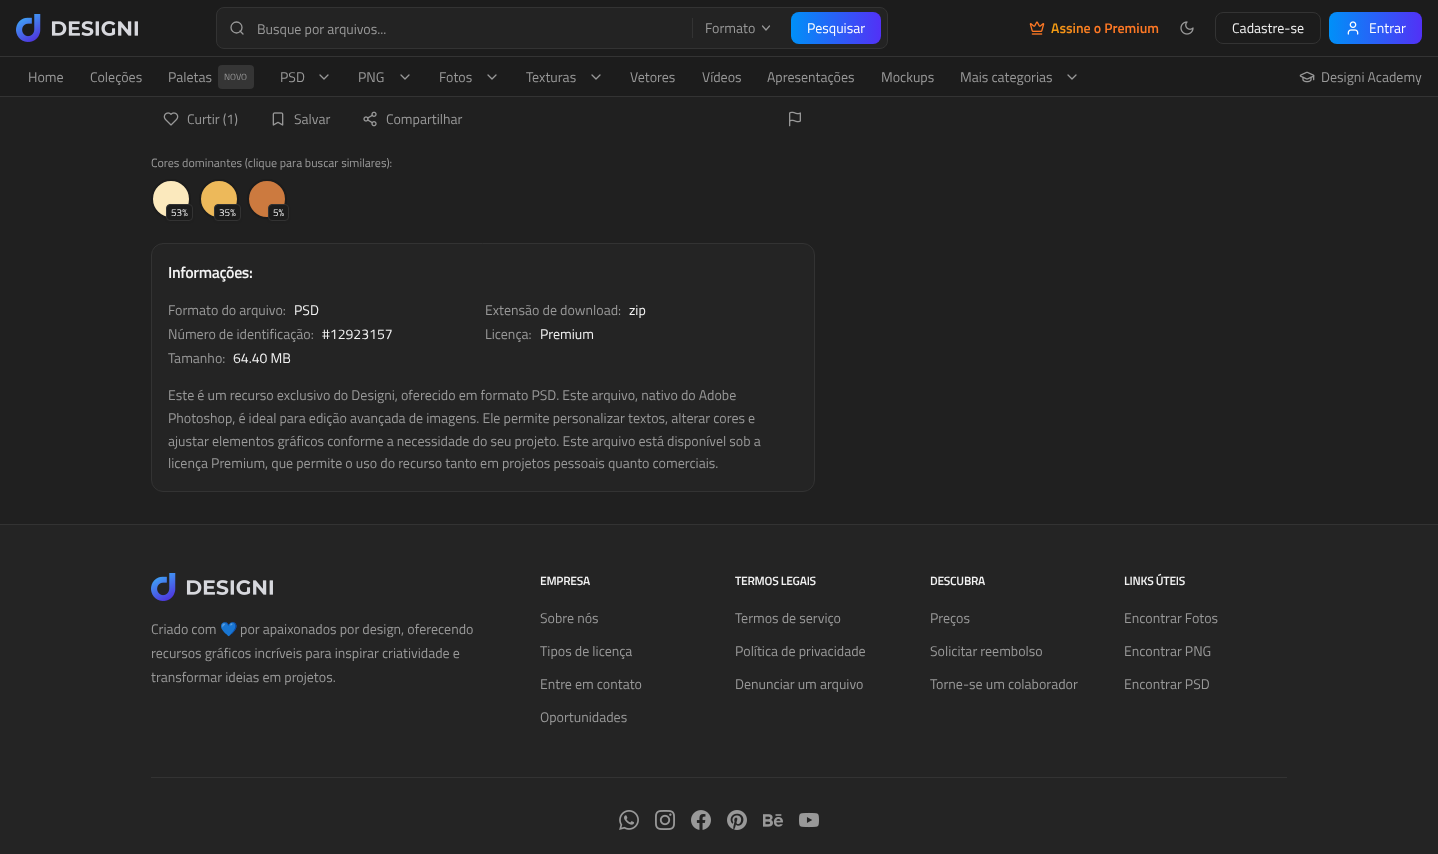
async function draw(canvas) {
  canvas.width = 1438;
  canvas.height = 854;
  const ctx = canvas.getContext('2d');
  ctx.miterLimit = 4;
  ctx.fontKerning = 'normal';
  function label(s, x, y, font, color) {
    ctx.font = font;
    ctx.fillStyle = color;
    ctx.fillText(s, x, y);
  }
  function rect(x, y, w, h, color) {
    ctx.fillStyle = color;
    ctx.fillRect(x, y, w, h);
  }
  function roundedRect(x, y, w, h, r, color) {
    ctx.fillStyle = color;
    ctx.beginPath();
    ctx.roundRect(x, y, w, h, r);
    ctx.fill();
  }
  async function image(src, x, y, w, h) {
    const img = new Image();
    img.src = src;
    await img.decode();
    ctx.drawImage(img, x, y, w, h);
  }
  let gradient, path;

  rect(0, 0, 1438, 854, '#202020');
  rect(0, 0, 1438, 96, '#1c1c1c');
  rect(0, 96, 1438, 1, '#333');
  await image('assets/img1.png', 16, 14, 122, 28);
  ctx.fillStyle = '#232323';
  ctx.beginPath();
  ctx.roundRect(216.5, 7.5, 671, 41, 7.5);
  ctx.fill();
  ctx.strokeStyle = '#333';
  ctx.stroke();
  ctx.beginPath();
  ctx.arc(236.5, 27.5, 5.5, 0, 2 * Math.PI);
  ctx.strokeStyle = '#999';
  ctx.lineWidth = 1.3;
  ctx.stroke();
  path = new Path2D('M243 34L240 31');
  ctx.lineCap = 'round';
  ctx.lineJoin = 'round';
  ctx.stroke(path);
  label('Busque por arquivos...', 257, 34, '14px Titillium Web', '#999');
  rect(692, 18, 1, 20, '#333');
  label('Formato', 705, 33, '14px Titillium Web', '#999');
  path = new Path2D('M762.5 26L766 30L769.5 26');
  ctx.lineWidth = 1.2;
  ctx.stroke(path);
  gradient = ctx.createLinearGradient(791, 28, 881, 28);
  gradient.addColorStop(0, '#0090f8');
  gradient.addColorStop(1, '#5231f6');
  ctx.fillStyle = gradient;
  ctx.beginPath();
  ctx.roundRect(791, 12, 90, 32, 8);
  ctx.fill();
  label('Pesquisar', 807, 33, '14px Titillium Web', '#fff');
  await image('assets/img2.png', 1029, 21, 16, 14);
  ctx.font = '600 14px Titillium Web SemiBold';
  gradient = ctx.createLinearGradient(1029, 28, 1159, 28);
  gradient.addColorStop(0, '#eab308');
  gradient.addColorStop(0.5, '#ff7824');
  gradient.addColorStop(1, '#ff7824');
  ctx.fillStyle = gradient;
  ctx.fillText('Assine o Premium', 1051, 33);
  await image('assets/img3.png', 1180, 21, 14, 14);
  ctx.beginPath();
  ctx.roundRect(1215.5, 12.5, 105, 31, 7.5);
  ctx.strokeStyle = '#333';
  ctx.lineWidth = 1;
  ctx.lineJoin = 'miter';
  ctx.stroke();
  label('Cadastre-se', 1232, 33, '14px Titillium Web', '#f2f2f2');
  gradient = ctx.createLinearGradient(1329, 28, 1422, 28);
  gradient.addColorStop(0, '#0090f8');
  gradient.addColorStop(1, '#5231f6');
  ctx.fillStyle = gradient;
  ctx.beginPath();
  ctx.roundRect(1329, 12, 93, 32, 8);
  ctx.fill();
  await image('assets/img4.png', 1347, 21, 12, 14);
  label('Entrar', 1369, 33, '14px Titillium Web', '#fff');
  rect(0, 56, 1438, 1, '#333');
  label('Home', 28, 82, '14px Titillium Web', '#999');
  label('Coleções', 90, 82, '14px Titillium Web', '#999');
  label('Paletas', 168, 82, '14px Titillium Web', '#999');
  roundedRect(218, 65, 36, 24, 4, '#353535');
  label('NOVO', 224, 80, '9px Titillium Web', '#999');
  label('PSD', 280, 82, '14px Titillium Web', '#999');
  path = new Path2D('M320 75L324 79L328 75');
  ctx.strokeStyle = '#999';
  ctx.lineWidth = 1.3;
  ctx.lineJoin = 'round';
  ctx.stroke(path);
  label('PNG', 358, 82, '14px Titillium Web', '#999');
  path = new Path2D('M401 75L405 79L409 75');
  ctx.stroke(path);
  label('Fotos', 439, 82, '14px Titillium Web', '#999');
  path = new Path2D('M488 75L492 79L496 75');
  ctx.stroke(path);
  label('Texturas', 526, 82, '14px Titillium Web', '#999');
  path = new Path2D('M592 75L596 79L600 75');
  ctx.stroke(path);
  label('Vetores', 630, 82, '14px Titillium Web', '#999');
  label('Vídeos', 702, 82, '14px Titillium Web', '#999');
  label('Apresentações', 767, 82, '14px Titillium Web', '#999');
  label('Mockups', 881, 82, '14px Titillium Web', '#999');
  label('Mais categorias', 960, 82, '14px Titillium Web', '#999');
  path = new Path2D('M1068 75L1072 79L1076 75');
  ctx.stroke(path);
  await image('assets/img5.png', 1299, 71, 16, 12);
  label('Designi Academy', 1321, 82, '14px Titillium Web', '#999');
  await image('assets/img6.png', 163, 112, 16, 14);
  label('Curtir (1)', 187, 124, '14px Titillium Web', '#999');
  await image('assets/img7.png', 272, 112, 12, 14);
  label('Salvar', 294, 124, '14px Titillium Web', '#999');
  await image('assets/img8.png', 363, 111, 14, 16);
  label('Compartilhar', 386, 124, '14px Titillium Web', '#999');
  await image('assets/img9.png', 789, 111, 12, 16);
  label('Cores dominantes (clique para buscar similares):', 151, 167, '12px Titillium Web', '#999');
  ctx.fillStyle = '#fbe9bd';
  ctx.beginPath();
  ctx.arc(171, 199, 19, 0, 2 * Math.PI);
  ctx.fill();
  ctx.strokeStyle = '#1c1c1c';
  ctx.lineWidth = 2;
  ctx.stroke();
  ctx.fillStyle = '#0000000d';
  ctx.filter = 'blur(1px)';
  ctx.beginPath();
  ctx.roundRect(166, 205, 27, 17, 4);
  ctx.fill();
  ctx.filter = 'none';
  ctx.fillStyle = '#1c1c1c';
  ctx.beginPath();
  ctx.roundRect(166.5, 204.5, 26, 16, 3.5);
  ctx.fill();
  ctx.strokeStyle = '#333';
  ctx.lineWidth = 1;
  ctx.lineJoin = 'miter';
  ctx.stroke();
  label('53%', 171, 216, '10px Titillium Web', '#f2f2f2');
  ctx.fillStyle = '#edb95a';
  ctx.beginPath();
  ctx.arc(219, 199, 19, 0, 2 * Math.PI);
  ctx.fill();
  ctx.strokeStyle = '#1c1c1c';
  ctx.lineWidth = 2;
  ctx.stroke();
  ctx.fillStyle = '#0000000d';
  ctx.filter = 'blur(1px)';
  ctx.beginPath();
  ctx.roundRect(214, 205, 27, 17, 4);
  ctx.fill();
  ctx.filter = 'none';
  ctx.fillStyle = '#1c1c1c';
  ctx.beginPath();
  ctx.roundRect(214.5, 204.5, 26, 16, 3.5);
  ctx.fill();
  ctx.strokeStyle = '#333';
  ctx.lineWidth = 1;
  ctx.stroke();
  label('35%', 219, 216, '10px Titillium Web', '#f2f2f2');
  ctx.fillStyle = '#cc7a3f';
  ctx.beginPath();
  ctx.arc(267, 199, 19, 0, 2 * Math.PI);
  ctx.fill();
  ctx.strokeStyle = '#1c1c1c';
  ctx.lineWidth = 2;
  ctx.stroke();
  ctx.fillStyle = '#0000000d';
  ctx.filter = 'blur(1px)';
  ctx.beginPath();
  ctx.roundRect(268, 205, 21, 17, 4);
  ctx.fill();
  ctx.filter = 'none';
  ctx.fillStyle = '#1c1c1c';
  ctx.beginPath();
  ctx.roundRect(268.5, 204.5, 20, 16, 3.5);
  ctx.fill();
  ctx.strokeStyle = '#333';
  ctx.lineWidth = 1;
  ctx.stroke();
  label('5%', 273, 216, '10px Titillium Web', '#f2f2f2');
  ctx.fillStyle = '#242424';
  ctx.beginPath();
  ctx.roundRect(151.5, 243.5, 663, 248, 11.5);
  ctx.fill();
  ctx.stroke();
  ctx.letterSpacing = '-0.4px';
  label('Informações:', 168, 278, '600 16px Titillium Web SemiBold', '#f2f2f2');
  ctx.letterSpacing = '0px';
  label('Formato do arquivo:', 168, 315, '14px Titillium Web', '#999');
  label('PSD', 294, 315, '14px Titillium Web', '#f2f2f2');
  label('Extensão de download:', 485, 315, '14px Titillium Web', '#999');
  label('zip', 629, 315, '14px Titillium Web', '#f2f2f2');
  label('Número de identificação:', 168, 339, '14px Titillium Web', '#999');
  label('#12923157', 322, 339, '14px Titillium Web', '#f2f2f2');
  label('Licença:', 485, 339, '14px Titillium Web', '#999');
  label('Premium', 540, 339, '14px Titillium Web', '#f2f2f2');
  label('Tamanho:', 168, 363, '14px Titillium Web', '#999');
  label('64.40 MB', 233, 363, '14px Titillium Web', '#f2f2f2');
  label('Este é um recurso exclusivo do Designi, oferecido em formato PSD. Este arquivo, nativo do Adobe', 168, 400, '14px Titillium Web', '#999');
  label('Photoshop, é ideal para edição avançada de imagens. Ele permite personalizar textos, alterar cores e', 168, 423, '14px Titillium Web', '#999');
  label('ajustar elementos gráficos conforme a necessidade do seu projeto. Este arquivo está disponível sob a', 168, 446, '14px Titillium Web', '#999');
  label('licença Premium, que permite o uso do recurso tanto em projetos pessoais quanto comerciais.', 168, 468, '14px Titillium Web', '#999');
  rect(0, 525, 1438, 329, '#242424');
  rect(0, 524, 1438, 1, '#333');
  await image('assets/img10.png', 151, 573, 122, 28);
  label('Criado com', 151, 634, '14px Titillium Web', '#999');
  label('💙', 220, 634, '14px Noto Color Emoji', '#999');
  label('por apaixonados por design, oferecendo', 240, 634, '14px Titillium Web', '#999');
  label('recursos gráficos incríveis para inspirar criatividade e', 151, 658, '14px Titillium Web', '#999');
  label('transformar ideias em projetos.', 151, 682, '14px Titillium Web', '#999');
  ctx.letterSpacing = '-0.25px';
  label('EMPRESA', 540, 585, '600 12px Titillium Web SemiBold', '#f2f2f2');
  ctx.letterSpacing = '0px';
  label('Sobre nós', 540, 623, '14px Titillium Web', '#999');
  label('Tipos de licença', 540, 656, '14px Titillium Web', '#999');
  label('Entre em contato', 540, 689, '14px Titillium Web', '#999');
  label('Oportunidades', 540, 722, '14px Titillium Web', '#999');
  ctx.letterSpacing = '-0.25px';
  label('TERMOS LEGAIS', 735, 585, '600 12px Titillium Web SemiBold', '#f2f2f2');
  ctx.letterSpacing = '0px';
  label('Termos de serviço', 735, 623, '14px Titillium Web', '#999');
  label('Política de privacidade', 735, 656, '14px Titillium Web', '#999');
  label('Denunciar um arquivo', 735, 689, '14px Titillium Web', '#999');
  ctx.letterSpacing = '-0.25px';
  label('DESCUBRA', 930, 585, '600 12px Titillium Web SemiBold', '#f2f2f2');
  ctx.letterSpacing = '0px';
  label('Preços', 930, 623, '14px Titillium Web', '#999');
  label('Solicitar reembolso', 930, 656, '14px Titillium Web', '#999');
  label('Torne-se um colaborador', 930, 689, '14px Titillium Web', '#999');
  ctx.letterSpacing = '-0.25px';
  label('LINKS ÚTEIS', 1124, 585, '600 12px Titillium Web SemiBold', '#f2f2f2');
  ctx.letterSpacing = '0px';
  label('Encontrar Fotos', 1124, 623, '14px Titillium Web', '#999');
  label('Encontrar PNG', 1124, 656, '14px Titillium Web', '#999');
  label('Encontrar PSD', 1124, 689, '14px Titillium Web', '#999');
  rect(151, 777, 1136, 1, '#333');
  await image('assets/img11.png', 619, 810, 20, 20);
  await image('assets/img12.png', 655, 810, 20, 20);
  await image('assets/img13.png', 691, 810, 20, 20);
  await image('assets/img14.png', 727, 810, 20, 20);
  await image('assets/img15.png', 763, 814, 20, 13);
  await image('assets/img16.png', 799, 812, 20, 16);
}

draw(document.querySelector('canvas'));
